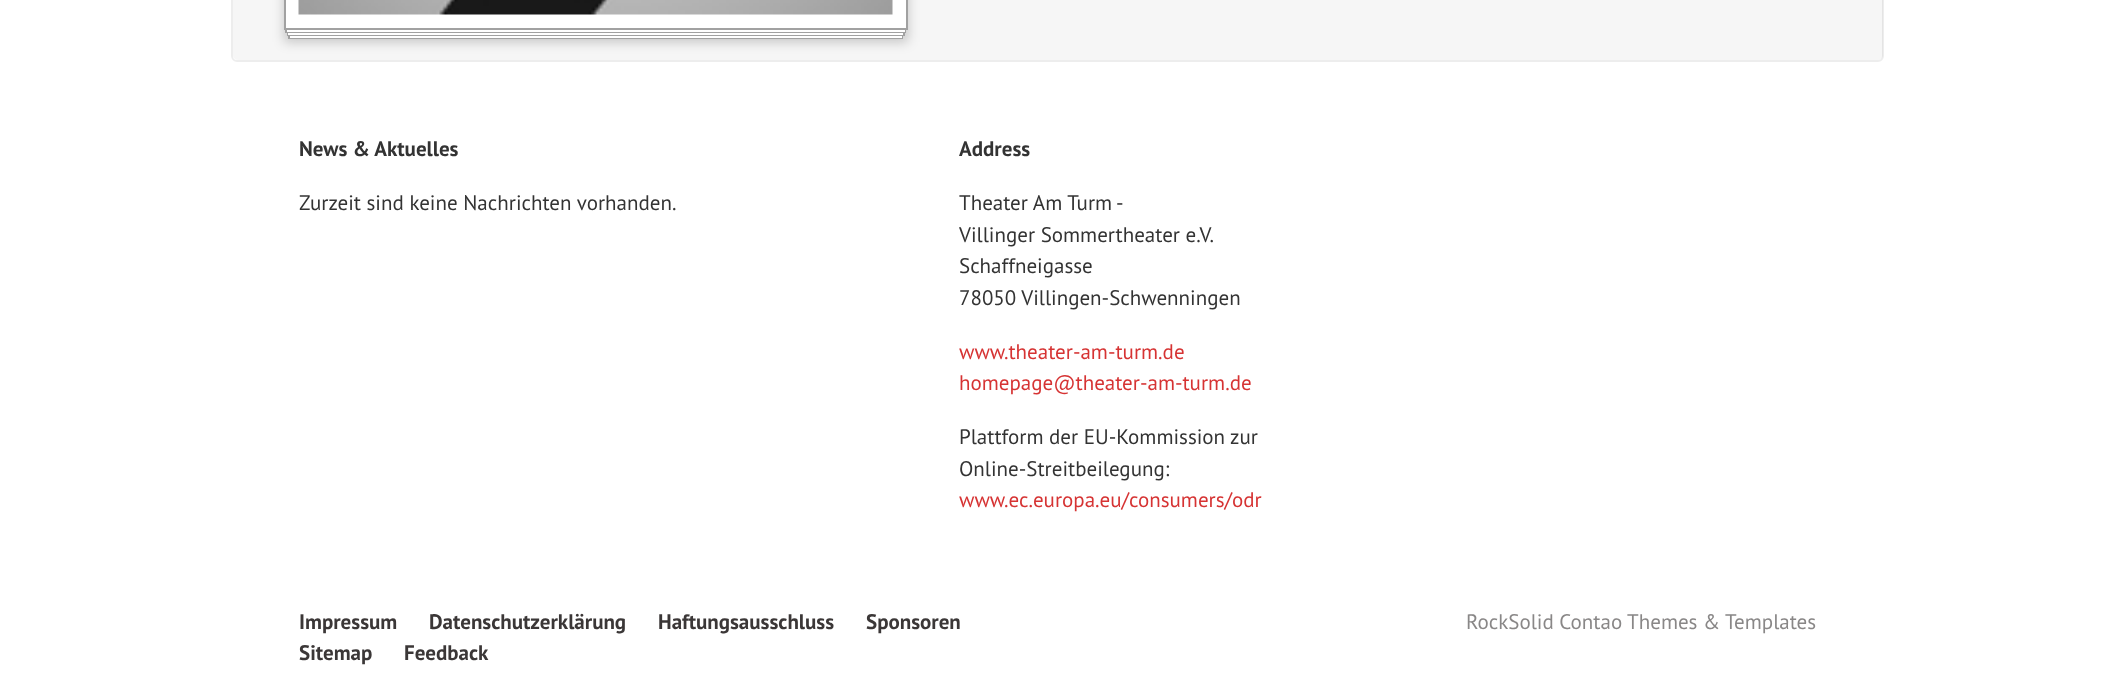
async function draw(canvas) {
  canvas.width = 2115;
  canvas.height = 691;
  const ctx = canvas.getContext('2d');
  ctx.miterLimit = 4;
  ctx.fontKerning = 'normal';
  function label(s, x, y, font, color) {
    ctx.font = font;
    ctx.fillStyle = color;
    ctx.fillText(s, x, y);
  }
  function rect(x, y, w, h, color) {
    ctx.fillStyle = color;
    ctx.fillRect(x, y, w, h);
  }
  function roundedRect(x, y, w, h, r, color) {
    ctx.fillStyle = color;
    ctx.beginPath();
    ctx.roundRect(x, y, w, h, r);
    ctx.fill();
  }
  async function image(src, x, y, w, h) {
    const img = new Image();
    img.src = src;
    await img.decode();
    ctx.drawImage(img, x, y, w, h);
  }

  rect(0, 0, 2115, 691, '#fff');
  roundedRect(233, -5, 1650, 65, 5, '#f6f6f6');
  ctx.beginPath();
  ctx.roundRect(232, -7, 1651, 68, 5);
  ctx.strokeStyle = '#00000012';
  ctx.lineWidth = 2;
  ctx.stroke();
  ctx.fillStyle = '#00000033';
  ctx.filter = 'blur(6px)';
  ctx.beginPath();
  ctx.rect(284, -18, 624, 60);
  ctx.fill();
  ctx.filter = 'none';
  rect(288, 36, 615, 3, '#a1a1a1');
  rect(290, 36, 612, 2, '#fff');
  rect(287, 33, 618, 3, '#a1a1a1');
  rect(288, 33, 615, 2, '#fff');
  rect(285, 30, 621, 3, '#a1a1a1');
  rect(287, 30, 618, 2, '#fff');
  ctx.beginPath();
  ctx.rect(285, -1, 622, 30);
  ctx.fill();
  ctx.strokeStyle = '#a1a1a1';
  ctx.stroke();
  await image('assets/img1.png', 298, 0, 595, 15);
  label('News & Aktuelles', 299, 156, 'bold 21px PT Sans', '#333');
  label('Zurzeit sind keine Nachrichten vorhanden.', 299, 210, '21px PT Sans', '#333');
  label('Address', 959, 156, 'bold 21px PT Sans', '#333');
  label('Theater Am Turm -', 959, 210, '21px PT Sans', '#333');
  label('Villinger Sommertheater e.V.', 959, 242, '21px PT Sans', '#333');
  label('Schaffneigasse', 959, 273, '21px PT Sans', '#333');
  label('78050 Villingen-Schwenningen', 959, 305, '21px PT Sans', '#333');
  label('www.theater-am-turm.de', 959, 359, '21px PT Sans', '#d63333');
  label('homepage@theater-am-turm.de', 959, 390, '21px PT Sans', '#d63333');
  label('Plattform der EU-Kommission zur', 959, 444, '21px PT Sans', '#333');
  label('Online-Streitbeilegung:', 959, 476, '21px PT Sans', '#333');
  label('www.ec.europa.eu/consumers/odr', 959, 507, '21px PT Sans', '#d63333');
  label('Impressum', 299, 629, 'bold 21px PT Sans', '#3b3737');
  label('Datenschutzerklärung', 429, 629, 'bold 21px PT Sans', '#3b3737');
  label('Haftungsausschluss', 658, 629, 'bold 21px PT Sans', '#3b3737');
  label('Sponsoren', 866, 629, 'bold 21px PT Sans', '#3b3737');
  label('Sitemap', 299, 660, 'bold 21px PT Sans', '#3b3737');
  label('Feedback', 404, 660, 'bold 21px PT Sans', '#3b3737');
  label('RockSolid Contao Themes & Templates', 1466, 629, '21px PT Sans', '#898787');
}

draw(document.querySelector('canvas'));
